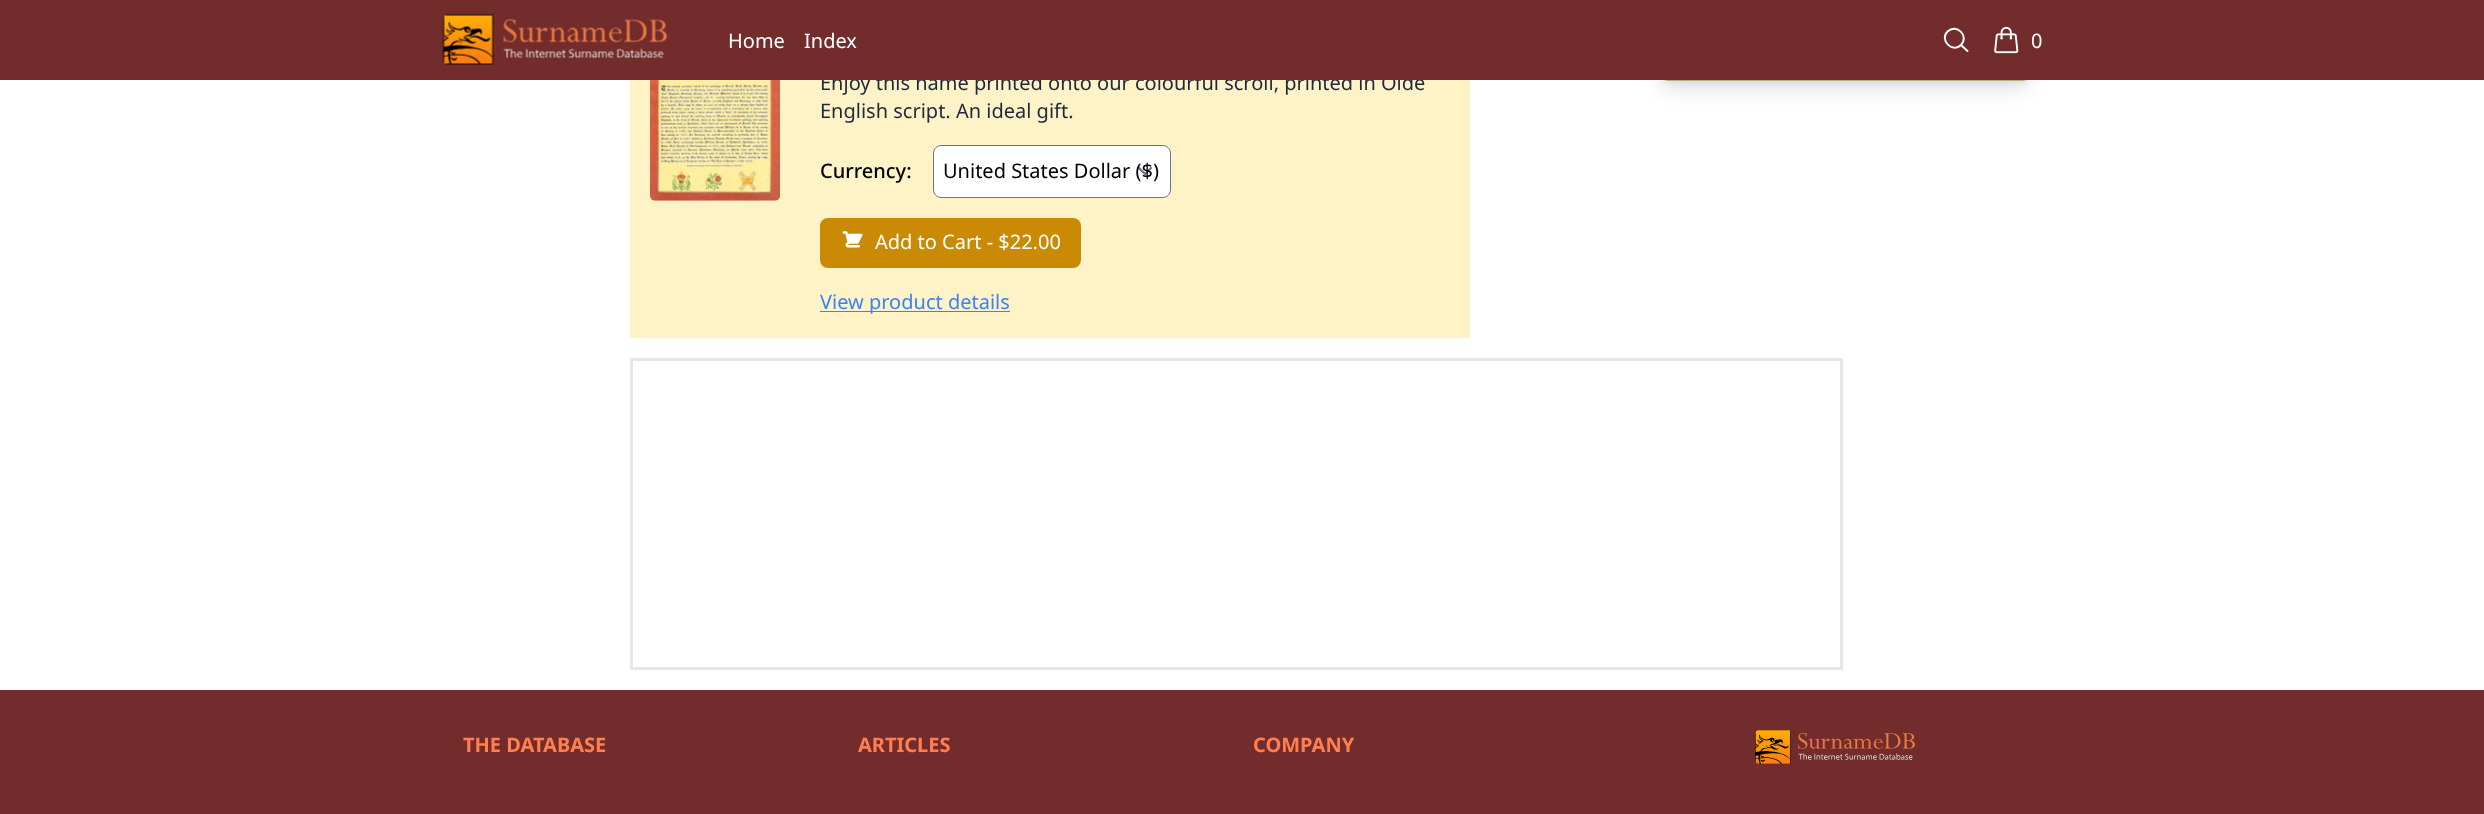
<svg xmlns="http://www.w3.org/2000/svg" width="2484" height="814">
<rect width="100%" height="100%" fill="#fff"/>
<rect x="1663" y="-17" width="365" height="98" rx="5" fill="#0000001a" filter="blur(4px)"/>
<rect x="1661" y="-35" width="368" height="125" rx="6" fill="#0000001a" filter="blur(9.5px)"/>
<rect x="1658" y="-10" width="375" height="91" rx="10" fill="#b5af82"/>
<rect x="630" y="80" width="840" height="258" fill="#fef3c7"/>
<text x="820" y="90" style="font-family:Noto Sans;font-size:20px;fill:#1e293b">Enjoy this name printed onto our colourful scroll, printed in Olde</text>
<rect width="2484" height="80" fill="#732c2c"/>
<image x="442" y="14" width="226" height="51" href="media/1.png"/>
<text x="728" y="48" style="font-family:Noto Sans;font-size:20px;fill:#fff">Home</text>
<text x="804" y="48" style="font-family:Noto Sans;font-size:20px;fill:#fff">Index</text>
<path d="M1967.5 51l-6.5-6m0 0c8.5-9-4.5-22-13.5-13.5c-8.5 8.5 5 22 13.5 13.5z" fill="none" stroke="#fff" stroke-width="1.9" stroke-linecap="round" stroke-linejoin="round"/>
<image x="1994" y="26" width="25" height="28" href="media/2.png"/>
<text x="2031" y="48" style="font-family:Noto Sans;font-size:20px;fill:#fff">0</text>
<image x="650" y="80" width="130" height="121" href="media/3.png"/>
<text x="820" y="118" style="font-family:Noto Sans;font-size:20px;fill:#1e293b">English script. An ideal gift.</text>
<text x="820" y="178" style="font-family:Noto Sans;font-size:20px;font-weight:500;fill:#000">Currency:</text>
<rect x="933" y="145" width="238" height="53" rx="8" fill="#fff"/>
<path d="M1139 168l6 6l6-6" fill="none" stroke="#6b7280" stroke-width="2.2" stroke-linecap="round" stroke-linejoin="round"/>
<rect x="933.5" y="145.5" width="237" height="52" rx="7.5" fill="none" stroke="#6b7280"/>
<text x="943" y="178" style="font-family:Noto Sans;font-size:20px;fill:#000">United States Dollar ($)</text>
<rect x="820" y="218" width="261" height="50" rx="8" fill="#ca8a04"/>
<image x="842" y="231" width="21" height="17" href="media/4.png"/>
<text x="875" y="249" style="font-family:Noto Sans;font-size:20px;fill:#fff">Add to Cart - $22.00</text>
<rect x="820" y="311" width="190" height="1" fill="#3b82f6"/>
<text x="820" y="309" style="font-family:Noto Sans;font-size:20px;fill:#3b82f6">View product details</text>
<rect x="631.5" y="359.5" width="1210" height="309" fill="none" stroke="#e5e7eb" stroke-width="3"/>
<rect y="690" width="2484" height="124" fill="#732c2c"/>
<text x="463" y="752" style="font-family:Noto Sans;font-size:20px;font-weight:bold;fill:#ff7f50">THE DATABASE</text>
<text x="858" y="752" style="font-family:Noto Sans;font-size:20px;font-weight:bold;fill:#ff7f50">ARTICLES</text>
<text x="1253" y="752" style="font-family:Noto Sans;font-size:20px;font-weight:bold;fill:#ff7f50">COMPANY</text>
<image x="1755" y="730" width="160" height="35" href="media/5.png"/>
</svg>
